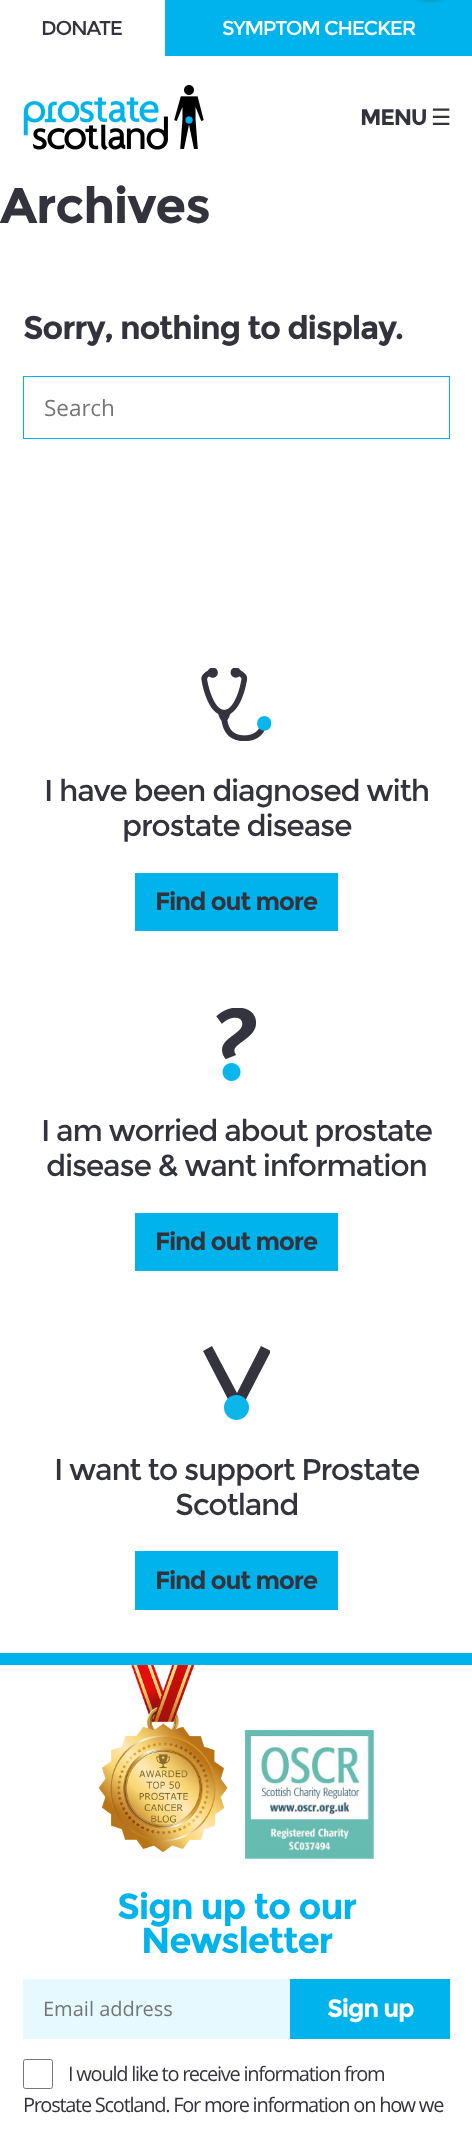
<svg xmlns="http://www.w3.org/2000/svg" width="472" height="2138">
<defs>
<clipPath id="clip1"><rect x="203" y="1346" width="67" height="74"/></clipPath>
</defs>
<rect width="100%" height="100%" fill="#fff"/>
<rect x="165" width="307" height="56" fill="#00b4eb"/>
<rect x="405" y="-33" width="50" height="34" rx="25" fill="#32323240" filter="blur(2.5px)"/>
<text x="41" y="35" style="font-family:Montserrat;font-size:20px;letter-spacing:-1.25px;fill:#33333d">DONATE</text>
<text x="222" y="35" style="font-family:Montserrat;font-size:20px;letter-spacing:-1.25px;fill:#fff">SYMPTOM CHECKER</text>
<image x="23" y="85" width="181" height="65" href="media/1.png"/>
<text x="360" y="125" style="font-family:Montserrat;font-size:22.5px;font-weight:bold;letter-spacing:-1.25px;fill:#33333d">MENU</text>
<text x="431" y="125" style="font-family:DejaVu Sans;font-size:22.5px;letter-spacing:-1.25px;fill:#33333d">☰</text>
<text x="0" y="223" style="font-family:Montserrat;font-size:50px;font-weight:bold;letter-spacing:-1.25px;fill:#33333d">Archives</text>
<text x="23" y="339" style="font-family:Montserrat;font-size:32.5px;font-weight:bold;letter-spacing:-1.25px;fill:#33333d">Sorry, nothing to display.</text>
<rect x="23.5" y="376.5" width="426" height="62" fill="none" stroke="#00b4eb"/>
<text x="44" y="416" style="font-family:Open Sans;font-size:22.5px;fill:#757575">Search</text>
<image x="201" y="668" width="70" height="73" href="media/2.png"/>
<text x="44" y="801" style="font-family:Montserrat;font-size:30px;letter-spacing:-1.25px;fill:#33333d">I have been diagnosed with</text>
<text x="122" y="836" style="font-family:Montserrat;font-size:30px;letter-spacing:-1.25px;fill:#33333d">prostate disease</text>
<rect x="135" y="873" width="203" height="58" fill="#00b4eb"/>
<text x="155" y="910" style="font-family:Montserrat;font-size:25px;font-weight:bold;letter-spacing:-1.25px;fill:#33333d">Find out more</text>
<image x="216" y="1008" width="40" height="73" href="media/3.png"/>
<text x="41" y="1141" style="font-family:Montserrat;font-size:30px;letter-spacing:-1.25px;fill:#33333d">I am worried about prostate</text>
<text x="46" y="1176" style="font-family:Montserrat;font-size:30px;letter-spacing:-1.25px;fill:#33333d">disease &amp; want information</text>
<rect x="135" y="1213" width="203" height="58" fill="#00b4eb"/>
<text x="155" y="1250" style="font-family:Montserrat;font-size:25px;font-weight:bold;letter-spacing:-1.25px;fill:#33333d">Find out more</text>
<g clip-path="url(#clip1)">
<path d="M271 1351l-10-5l-24 47l-25-47l-9 5l29 56l5-2l5 2z" fill="#34343e"/>
</g>
<circle cx="236.5" cy="1407.5" r="12.5" fill="#0cb5ea"/>
<text x="54" y="1480" style="font-family:Montserrat;font-size:30px;letter-spacing:-1.25px;fill:#33333d">I want to support Prostate</text>
<text x="175" y="1515" style="font-family:Montserrat;font-size:30px;letter-spacing:-1.25px;fill:#33333d">Scotland</text>
<rect x="135" y="1551" width="203" height="59" fill="#00b4eb"/>
<text x="155" y="1589" style="font-family:Montserrat;font-size:25px;font-weight:bold;letter-spacing:-1.25px;fill:#33333d">Find out more</text>
<rect y="1653" width="472" height="12" fill="#00b4eb"/>
<image x="98" y="1665" width="130" height="193" href="media/4.png"/>
<image x="245" y="1730" width="129" height="129" href="media/5.png"/>
<text x="117" y="1919" style="font-family:Montserrat;font-size:36px;font-weight:bold;letter-spacing:-1.25px;fill:#00b4eb">Sign up to our</text>
<text x="141" y="1953" style="font-family:Montserrat;font-size:36px;font-weight:bold;letter-spacing:-1.25px;fill:#00b4eb">Newsletter</text>
<rect x="23" y="1979" width="267" height="60" fill="#e5f9ff"/>
<text x="43" y="2016" style="font-family:Open Sans;font-size:20px;fill:#757575">Email address</text>
<rect x="290" y="1979" width="160" height="60" fill="#00b4eb"/>
<text x="327" y="2017" style="font-family:Montserrat;font-size:25px;font-weight:bold;letter-spacing:-1.25px;fill:#fff">Sign up</text>
<rect x="23.5" y="2059.5" width="29" height="29" rx="2" fill="none" stroke="#767676"/>
<text x="68" y="2081" style="font-family:Open Sans;font-size:20px;letter-spacing:-1.25px;fill:#33333d">I would like to receive information from</text>
<text x="23" y="2112" style="font-family:Open Sans;font-size:20px;letter-spacing:-1.25px;fill:#33333d">Prostate Scotland. For more information on how we</text>
</svg>
